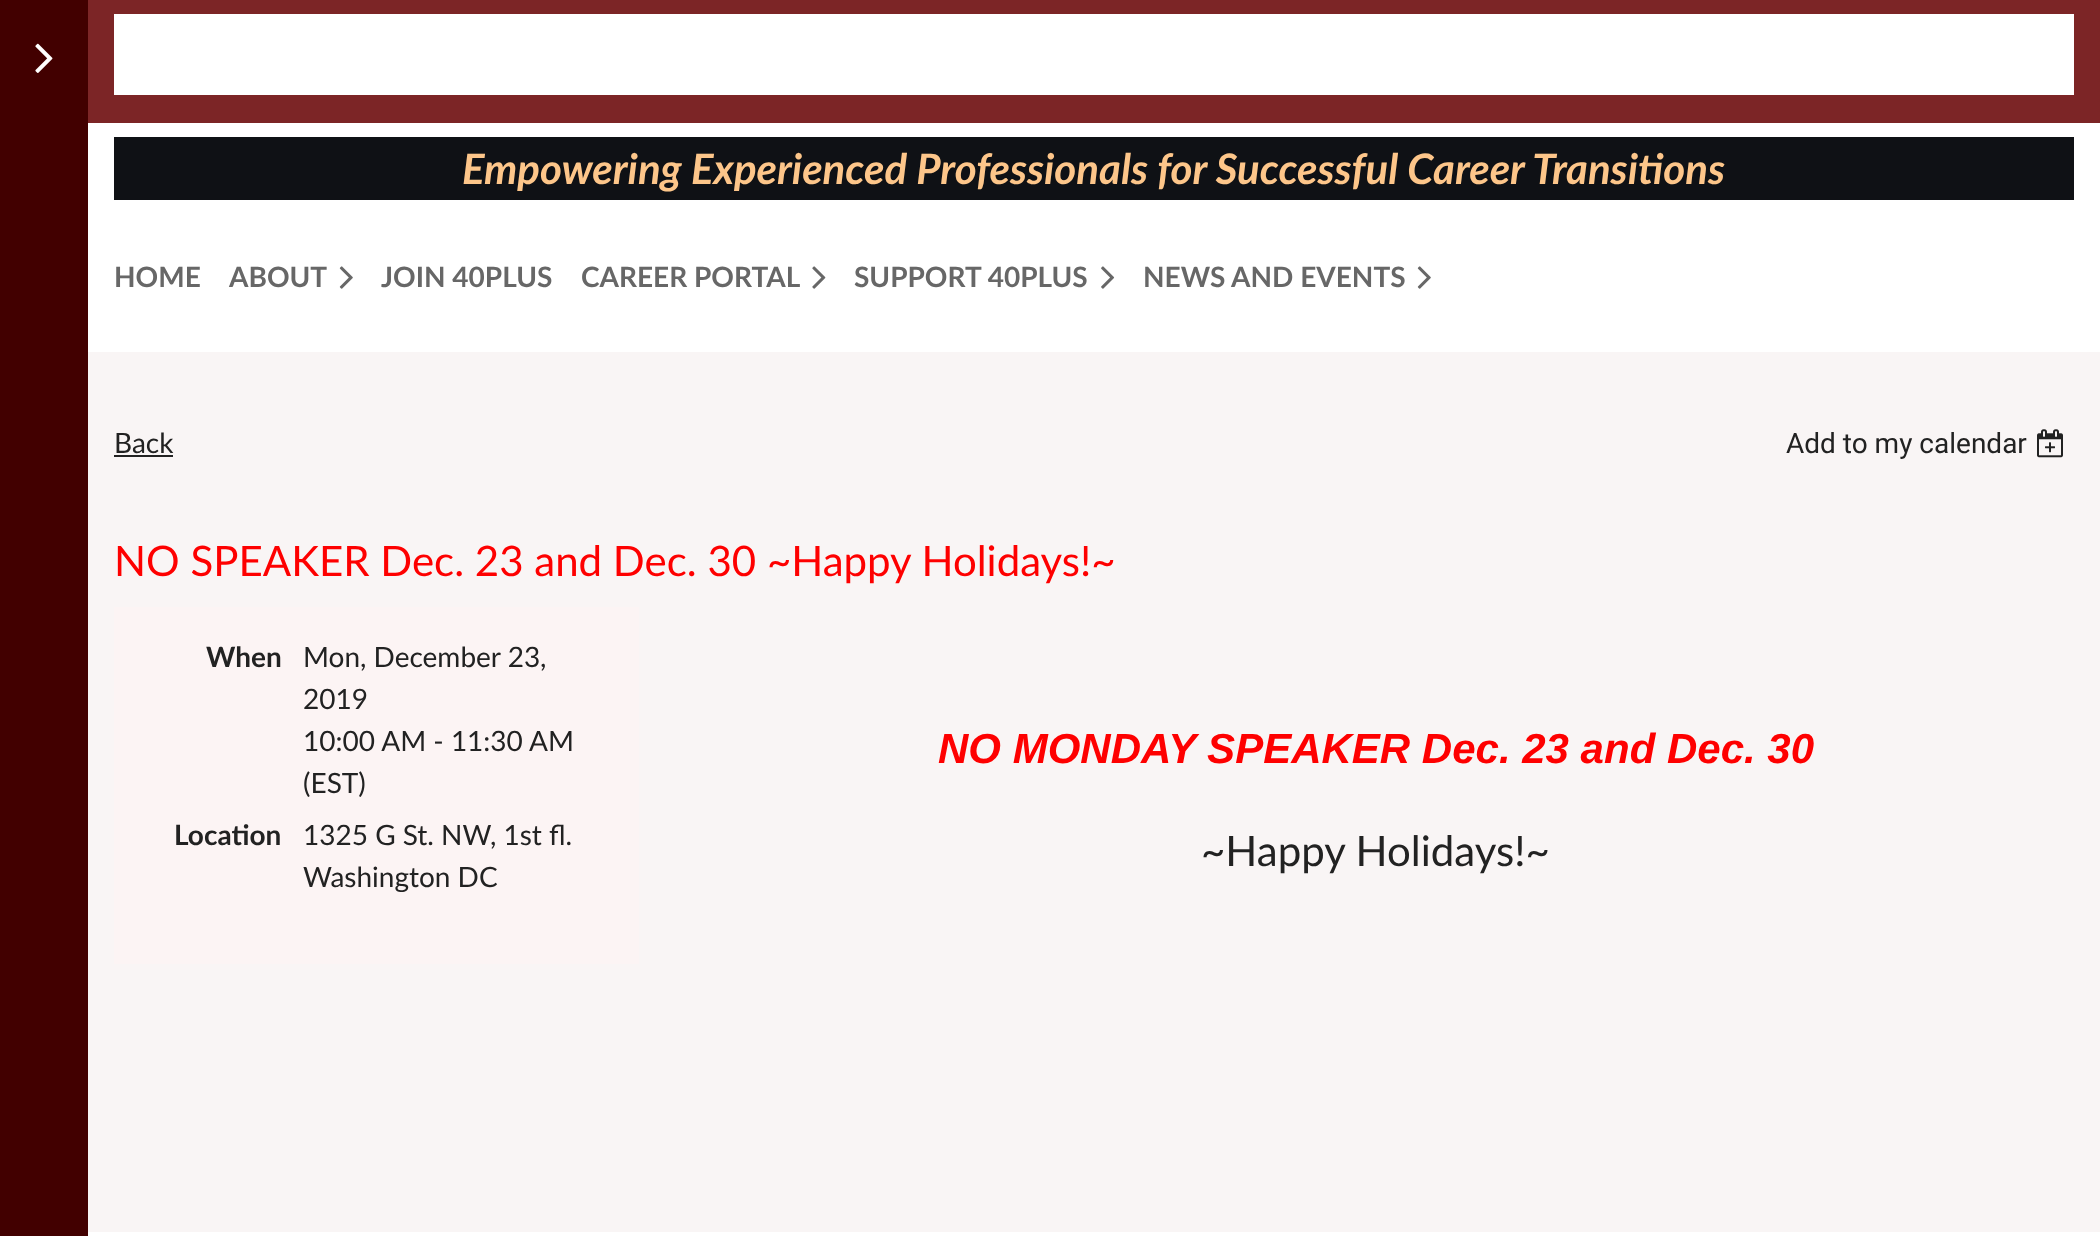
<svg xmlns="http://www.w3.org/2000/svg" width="2100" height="1236">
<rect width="100%" height="100%" fill="#fff"/>
<rect width="88" height="1236" fill="#420000"/>
<image x="35" y="43" width="18" height="30" href="media/1.png"/>
<rect x="88" width="2012" height="123" fill="#7c2526"/>
<rect x="114" y="14" width="1960" height="81" fill="#fff"/>
<rect x="114" y="137" width="1960" height="63" fill="#0f1115"/>
<text x="462" y="184" style="font-family:Lato;font-size:42px;font-weight:bold;font-style:italic;fill:#fdc68a">Empowering Experienced Professionals for Successful Career Transitions</text>
<text x="114" y="287" style="font-family:Lato;font-size:28px;font-weight:bold;fill:#676767">HOME</text>
<text x="229" y="287" style="font-family:Lato;font-size:28px;font-weight:bold;fill:#676767">ABOUT</text>
<image x="339" y="266" width="14" height="23" href="media/2.png"/>
<text x="381" y="287" style="font-family:Lato;font-size:28px;font-weight:bold;fill:#676767">JOIN 40PLUS</text>
<text x="581" y="287" style="font-family:Lato;font-size:28px;font-weight:bold;fill:#676767">CAREER PORTAL</text>
<image x="812" y="266" width="14" height="23" href="media/3.png"/>
<text x="854" y="287" style="font-family:Lato;font-size:28px;font-weight:bold;fill:#676767">SUPPORT 40PLUS</text>
<image x="1101" y="266" width="14" height="23" href="media/4.png"/>
<text x="1143" y="287" style="font-family:Lato;font-size:28px;font-weight:bold;fill:#676767">NEWS AND EVENTS</text>
<image x="1417" y="266" width="14" height="23" href="media/2.png"/>
<rect x="88" y="352" width="2012" height="880" fill="#f9f5f5"/>
<text x="114" y="453" style="font-family:Lato;font-size:28px;fill:#222">Back</text>
<rect x="114" y="455" width="59" height="2" fill="#222"/>
<text x="1786" y="453" style="font-family:Roboto;font-size:28px;fill:#222">Add to my calendar</text>
<image x="2037" y="429" width="26" height="29" href="media/5.png"/>
<text x="114" y="576" style="font-family:Lato;font-size:42px;fill:#fe0000">NO SPEAKER Dec. 23 and Dec. 30 ~Happy Holidays!~</text>
<rect x="114" y="607" width="525" height="357" fill="#fcf4f4"/>
<text x="206" y="667" style="font-family:Lato;font-size:28px;font-weight:bold;fill:#222">When</text>
<text x="303" y="667" style="font-family:Lato;font-size:28px;fill:#222">Mon, December 23,</text>
<text x="303" y="709" style="font-family:Lato;font-size:28px;fill:#222">2019</text>
<text x="303" y="751" style="font-family:Lato;font-size:28px;fill:#222">10:00 AM - 11:30 AM</text>
<text x="303" y="793" style="font-family:Lato;font-size:28px;fill:#222">(EST)</text>
<text x="174" y="845" style="font-family:Lato;font-size:28px;font-weight:bold;fill:#222">Location</text>
<text x="303" y="845" style="font-family:Lato;font-size:28px;fill:#222">1325 G St. NW, 1st fl.</text>
<text x="303" y="887" style="font-family:Lato;font-size:28px;fill:#222">Washington DC</text>
<text x="938" y="763" style="font-family:Liberation Sans;font-size:42px;font-weight:bold;font-style:italic;fill:#fe0000">NO MONDAY SPEAKER Dec. 23 and Dec. 30</text>
<text x="1201" y="866" style="font-family:Lato;font-size:42px;fill:#222">~Happy Holidays!~</text>
</svg>
